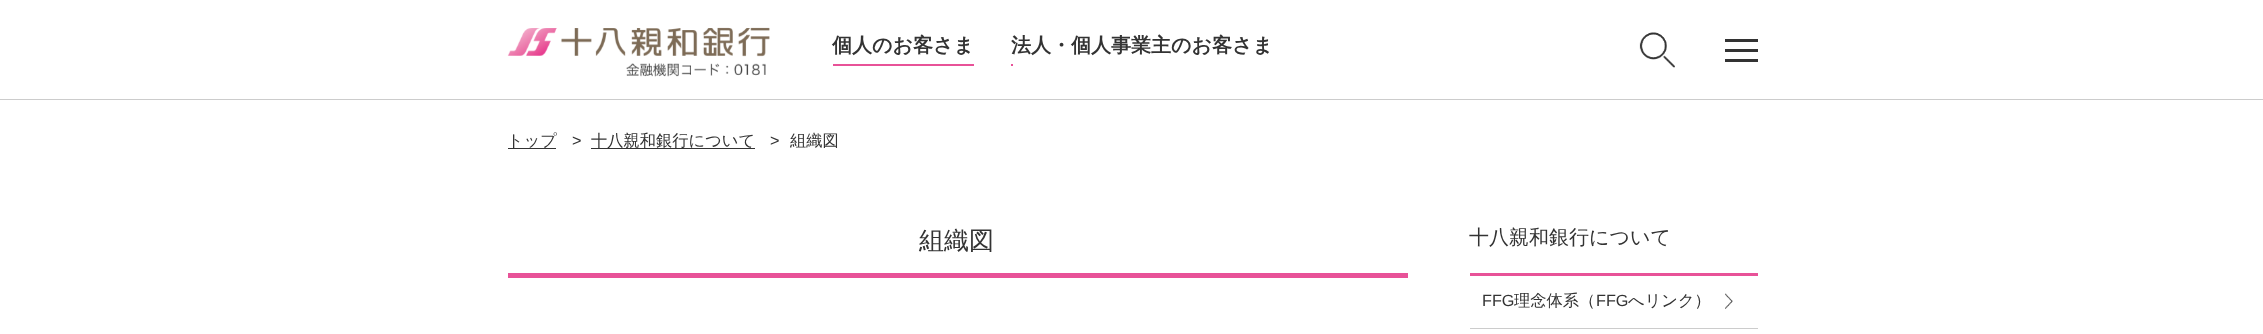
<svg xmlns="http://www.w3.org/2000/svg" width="2263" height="334">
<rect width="100%" height="100%" fill="#fff"/>
<image x="507" y="27" width="263" height="50" href="media/1.png"/>
<text x="832" y="52" style="font-family:WenQuanYi Zen Hei;font-size:20px;font-weight:bold;fill:#333">個人のお客さま</text>
<rect x="833" y="64" width="141" height="2" fill="#e85298"/>
<text x="1011" y="52" style="font-family:WenQuanYi Zen Hei;font-size:20px;font-weight:bold;fill:#333">法人・個人事業主のお客さま</text>
<rect x="1011" y="64" width="2" height="2" fill="#e85298"/>
<image x="1639" y="32" width="36" height="36" href="media/2.png"/>
<rect x="1725" y="39" width="33" height="3" fill="#333"/>
<rect x="1725" y="49" width="33" height="3" fill="#333"/>
<rect x="1725" y="59" width="33" height="3" fill="#333"/>
<rect y="99" width="2263" height="1" fill="#ccc"/>
<text x="507" y="146" style="font-family:WenQuanYi Zen Hei;font-size:16.25px;font-weight:500;fill:#333">トップ</text>
<rect x="508" y="148" width="48" height="1" fill="#333"/>
<text x="572" y="146" style="font-family:Liberation Sans;font-size:16.25px;fill:#333">&gt;</text>
<rect x="591" y="148" width="164" height="1" fill="#333"/>
<text x="591" y="146" style="font-family:WenQuanYi Zen Hei;font-size:16.25px;font-weight:500;fill:#333">十八親和銀行について</text>
<text x="770" y="146" style="font-family:Liberation Sans;font-size:16.25px;fill:#333">&gt;</text>
<text x="790" y="146" style="font-family:WenQuanYi Zen Hei;font-size:16.25px;font-weight:500;fill:#333">組織図</text>
<text x="919" y="249" style="font-family:WenQuanYi Zen Hei;font-size:25px;font-weight:500;fill:#333">組織図</text>
<rect x="508" y="273" width="900" height="5" fill="#e85298"/>
<rect x="1470" y="273" width="288" height="3" fill="#e85298"/>
<text x="1469" y="244" style="font-family:WenQuanYi Zen Hei;font-size:20px;font-weight:500;fill:#333">十八親和銀行について</text>
<image x="1725" y="293" width="8" height="16" href="media/3.png"/>
<rect x="1470" y="328" width="288" height="1" fill="#ccc"/>
<text x="1482" y="306" style="font-family:Liberation Sans;font-size:16.25px;fill:#333">FFG</text>
<text x="1514" y="306" style="font-family:WenQuanYi Zen Hei;font-size:16.25px;font-weight:500;fill:#333">理念体系（</text>
<text x="1596" y="306" style="font-family:Liberation Sans;font-size:16.25px;fill:#333">FFG</text>
<text x="1628" y="306" style="font-family:WenQuanYi Zen Hei;font-size:16.25px;font-weight:500;fill:#333">へリンク）</text>
</svg>
